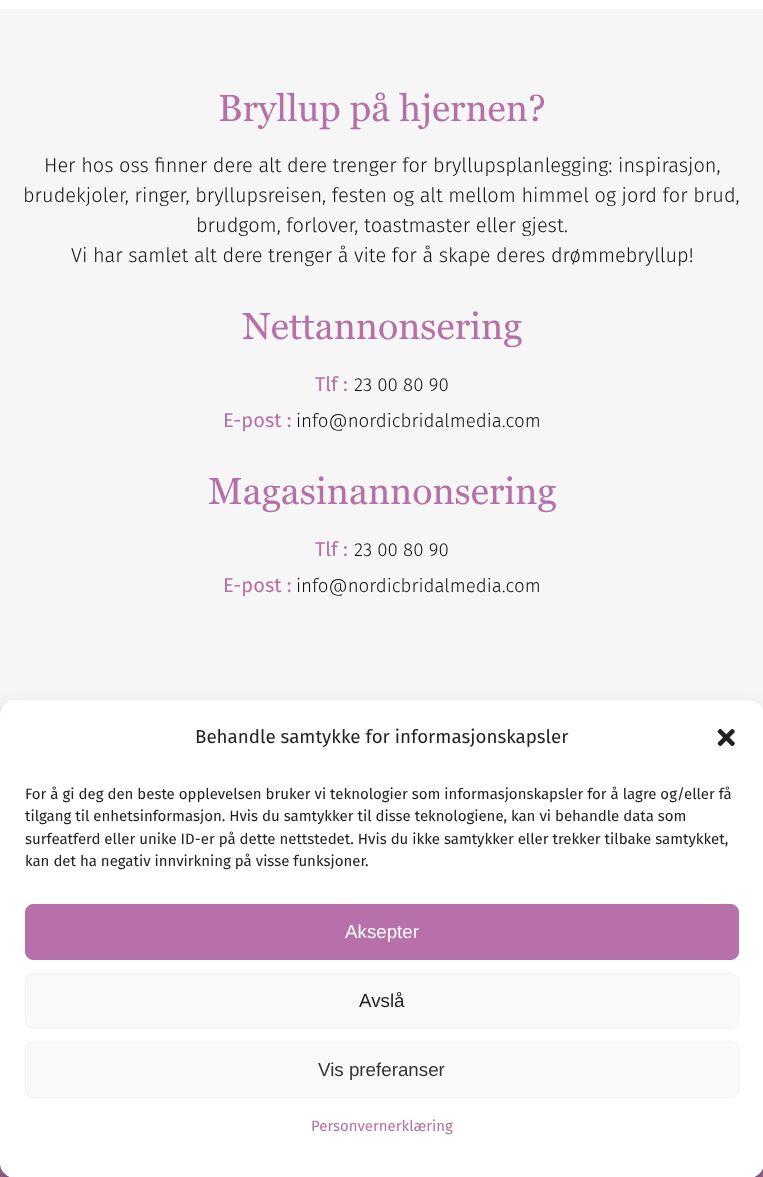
<svg xmlns="http://www.w3.org/2000/svg" width="763" height="1177">
<rect width="100%" height="100%" fill="#fff"/>
<rect y="9" width="763" height="706" fill="#f6f6f6"/>
<text x="218" y="121" style="font-family:Georgia;font-size:37.5px;fill:#b570a5">Bryllup på hjernen?</text>
<text x="44" y="172" style="font-family:Fira Sans;font-size:20px;font-weight:300;fill:#121212">Her hos oss finner dere alt dere trenger for bryllupsplanlegging: inspirasjon,</text>
<text x="23" y="202" style="font-family:Fira Sans;font-size:20px;font-weight:300;fill:#121212">brudekjoler, ringer, bryllupsreisen, festen og alt mellom himmel og jord for brud,</text>
<text x="196" y="232" style="font-family:Fira Sans;font-size:20px;font-weight:300;fill:#121212">brudgom, forlover, toastmaster eller gjest.</text>
<text x="71" y="262" style="font-family:Fira Sans;font-size:20px;font-weight:300;fill:#121212">Vi har samlet alt dere trenger å vite for å skape deres drømmebryllup!</text>
<text x="242" y="339" style="font-family:Georgia;font-size:37.5px;fill:#b570a5">Nettannonsering</text>
<text x="315" y="391" style="font-family:Fira Sans;font-size:20px;fill:#b570a5">Tlf :</text>
<text x="354" y="391" style="font-family:Fira Sans;font-size:18.75px;font-weight:300;fill:#121212">23 00 80 90</text>
<text x="223" y="427" style="font-family:Fira Sans;font-size:20px;fill:#b570a5">E-post :</text>
<text x="296" y="427" style="font-family:Fira Sans;font-size:18.75px;font-weight:300;fill:#121212">info@nordicbridalmedia.com</text>
<text x="208" y="504" style="font-family:Georgia;font-size:37.5px;fill:#b570a5">Magasinannonsering</text>
<text x="315" y="556" style="font-family:Fira Sans;font-size:20px;fill:#b570a5">Tlf :</text>
<text x="354" y="556" style="font-family:Fira Sans;font-size:18.75px;font-weight:300;fill:#121212">23 00 80 90</text>
<text x="223" y="592" style="font-family:Fira Sans;font-size:20px;fill:#b570a5">E-post :</text>
<text x="296" y="592" style="font-family:Fira Sans;font-size:18.75px;font-weight:300;fill:#121212">info@nordicbridalmedia.com</text>
<rect y="1163" width="763" height="14" fill="#b570a5"/>
<rect y="708" width="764" height="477" rx="15" fill="#0000003b" filter="blur(4px)"/>
<rect y="713" width="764" height="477" rx="15" fill="#00000030" filter="blur(12.5px)"/>
<rect y="700" width="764" height="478" rx="15" fill="#fff"/>
<text x="195" y="743" style="font-family:Fira Sans;font-size:18.75px;fill:#222">Behandle samtykke for informasjonskapsler</text>
<image x="717" y="728" width="18" height="19" href="media/1.png"/>
<text x="25" y="799" style="font-family:Fira Sans;font-size:15px;fill:#222">For å gi deg den beste opplevelsen bruker vi teknologier som informasjonskapsler for å lagre og/eller få</text>
<text x="25" y="821" style="font-family:Fira Sans;font-size:15px;fill:#222">tilgang til enhetsinformasjon. Hvis du samtykker til disse teknologiene, kan vi behandle data som</text>
<text x="25" y="844" style="font-family:Fira Sans;font-size:15px;fill:#222">surfeatferd eller unike ID-er på dette nettstedet. Hvis du ikke samtykker eller trekker tilbake samtykket,</text>
<text x="25" y="866" style="font-family:Fira Sans;font-size:15px;fill:#222">kan det ha negativ innvirkning på visse funksjoner.</text>
<rect x="25.5" y="904.5" width="713" height="55" rx="7.5" fill="#b770a9" stroke="#b770a9"/>
<text x="345" y="938" style="font-family:Liberation Sans;font-size:18.75px;fill:#fff">Aksepter</text>
<rect x="25.5" y="973.5" width="713" height="55" rx="7.5" fill="#f9f9f9" stroke="#f2f2f2"/>
<text x="359" y="1007" style="font-family:Liberation Sans;font-size:18.75px;fill:#222">Avslå</text>
<rect x="25.5" y="1041.5" width="713" height="56" rx="7.5" fill="#f9f9f9" stroke="#f2f2f2"/>
<text x="318" y="1076" style="font-family:Liberation Sans;font-size:18.75px;fill:#333">Vis preferanser</text>
<text x="311" y="1131" style="font-family:Fira Sans;font-size:15px;fill:#b570a5">Personvernerklæring</text>
</svg>
